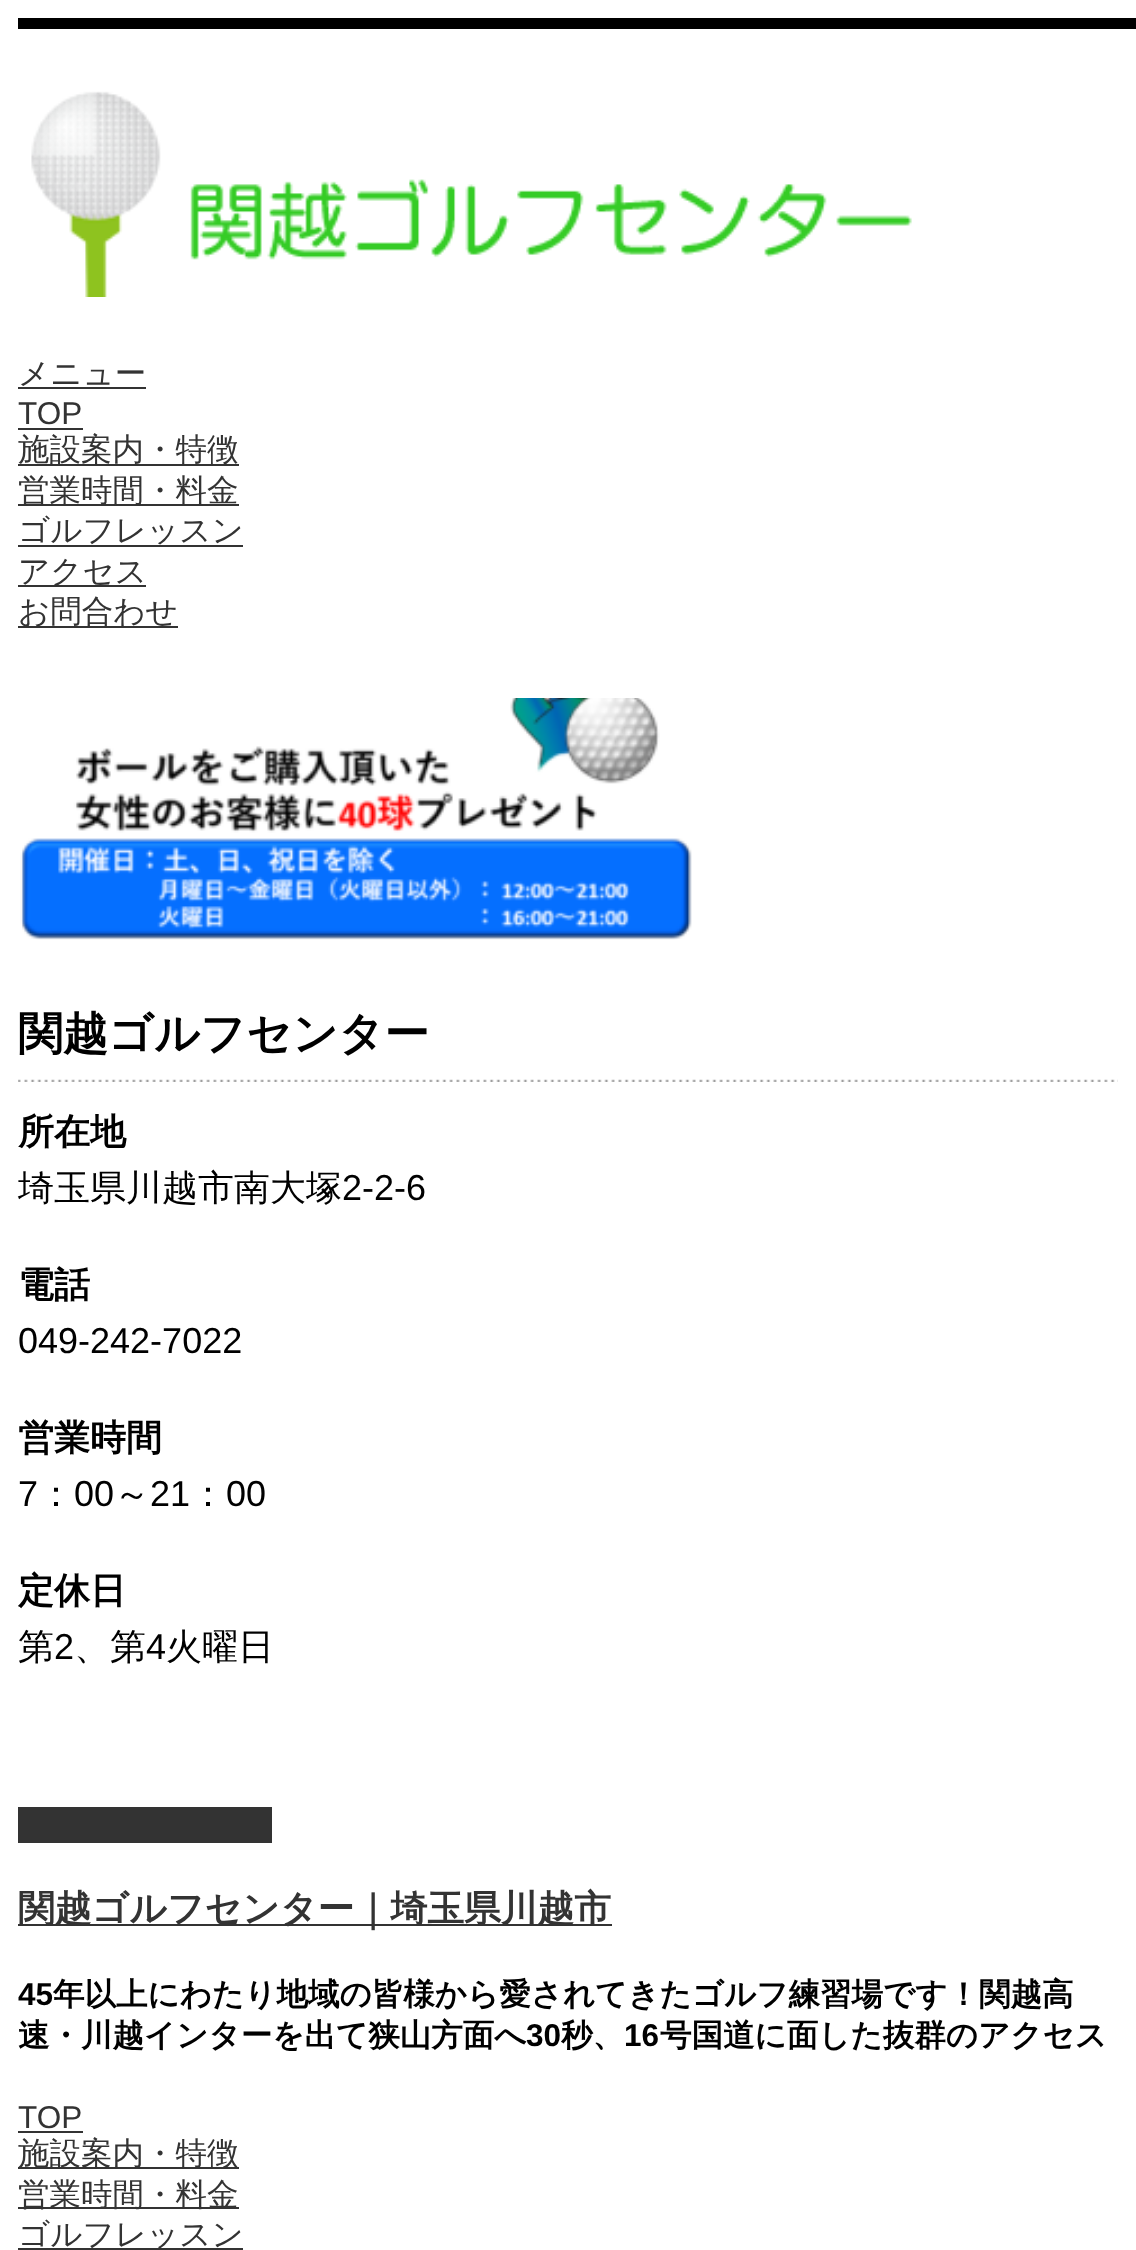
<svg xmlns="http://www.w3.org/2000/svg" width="1136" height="2250">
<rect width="100%" height="100%" fill="#fff"/>
<rect x="18" y="18" width="1118" height="11" fill="#000"/>
<image x="31" y="91" width="881" height="206" href="media/1.png"/>
<text x="18" y="384" style="font-family:WenQuanYi Zen Hei;font-size:31.5px;font-weight:500;fill:#333">メニュー</text>
<rect x="18" y="387" width="128" height="2" fill="#333"/>
<text x="18" y="424" style="font-family:Liberation Sans;font-size:31.5px;fill:#333">TOP</text>
<rect x="18" y="428" width="65" height="2" fill="#333"/>
<rect x="18" y="464" width="221" height="2" fill="#333"/>
<text x="18" y="460" style="font-family:WenQuanYi Zen Hei;font-size:31.5px;font-weight:500;fill:#333">施設案内・特徴</text>
<rect x="18" y="504" width="221" height="2" fill="#333"/>
<text x="18" y="501" style="font-family:WenQuanYi Zen Hei;font-size:31.5px;font-weight:500;fill:#333">営業時間・料金</text>
<text x="18" y="541" style="font-family:WenQuanYi Zen Hei;font-size:31.5px;font-weight:500;fill:#333">ゴルフレッスン</text>
<rect x="18" y="545" width="225" height="2" fill="#333"/>
<rect x="18" y="585" width="128" height="2" fill="#333"/>
<text x="18" y="582" style="font-family:WenQuanYi Zen Hei;font-size:31.5px;font-weight:500;fill:#333">アクセス</text>
<rect x="18" y="626" width="160" height="2" fill="#333"/>
<text x="18" y="622" style="font-family:WenQuanYi Zen Hei;font-size:31.5px;font-weight:500;fill:#333">お問合わせ</text>
<image x="20" y="698" width="672" height="242" href="media/2.png"/>
<image x="18" y="1079" width="1100" height="3" href="media/3.png"/>
<text x="18" y="1049" style="font-family:WenQuanYi Zen Hei;font-size:45px;font-weight:bold;fill:#000">関越ゴルフセンター</text>
<text x="18" y="1144" style="font-family:WenQuanYi Zen Hei;font-size:36px;font-weight:bold;fill:#000">所在地</text>
<text x="18" y="1200" style="font-family:WenQuanYi Zen Hei;font-size:36px;font-weight:500;fill:#000">埼玉県川越市南大塚</text>
<text x="342" y="1200" style="font-family:Liberation Sans;font-size:36px;fill:#000">2-2-6</text>
<text x="18" y="1297" style="font-family:WenQuanYi Zen Hei;font-size:36px;font-weight:bold;fill:#000">電話</text>
<text x="18" y="1353" style="font-family:Liberation Sans;font-size:36px;fill:#000">049-242-7022</text>
<text x="18" y="1450" style="font-family:WenQuanYi Zen Hei;font-size:36px;font-weight:bold;fill:#000">営業時間</text>
<text x="18" y="1506" style="font-family:Liberation Sans;font-size:36px;fill:#000">7</text>
<text x="38" y="1506" style="font-family:WenQuanYi Zen Hei;font-size:36px;font-weight:500;fill:#000">：</text>
<text x="74" y="1506" style="font-family:Liberation Sans;font-size:36px;fill:#000">00</text>
<text x="114" y="1506" style="font-family:WenQuanYi Zen Hei;font-size:36px;font-weight:500;fill:#000">～</text>
<text x="150" y="1506" style="font-family:Liberation Sans;font-size:36px;fill:#000">21</text>
<text x="190" y="1506" style="font-family:WenQuanYi Zen Hei;font-size:36px;font-weight:500;fill:#000">：</text>
<text x="226" y="1506" style="font-family:Liberation Sans;font-size:36px;fill:#000">00</text>
<text x="18" y="1603" style="font-family:WenQuanYi Zen Hei;font-size:36px;font-weight:bold;fill:#000">定休日</text>
<text x="18" y="1659" style="font-family:WenQuanYi Zen Hei;font-size:36px;font-weight:500;fill:#000">第</text>
<text x="54" y="1659" style="font-family:Liberation Sans;font-size:36px;fill:#000">2</text>
<text x="74" y="1659" style="font-family:WenQuanYi Zen Hei;font-size:36px;font-weight:500;fill:#000">、第</text>
<text x="146" y="1659" style="font-family:Liberation Sans;font-size:36px;fill:#000">4</text>
<text x="166" y="1659" style="font-family:WenQuanYi Zen Hei;font-size:36px;font-weight:500;fill:#000">火曜日</text>
<rect x="18" y="1807" width="254" height="36" fill="#333"/>
<rect x="18" y="1924" width="594" height="2" fill="#333"/>
<text x="18" y="1921" style="font-family:WenQuanYi Zen Hei;font-size:36.8px;font-weight:bold;fill:#333">関越ゴルフセンター｜埼玉県川越市</text>
<text x="18" y="2005" style="font-family:Liberation Sans;font-size:31.5px;font-weight:bold;fill:#000">45</text>
<text x="53" y="2005" style="font-family:WenQuanYi Zen Hei;font-size:31.5px;font-weight:bold;fill:#000">年以上にわたり地域の皆様から愛されてきたゴルフ練習場です！関越高</text>
<text x="18" y="2046" style="font-family:WenQuanYi Zen Hei;font-size:31.5px;font-weight:bold;fill:#000">速・川越インターを出て狭山方面へ</text>
<text x="526" y="2046" style="font-family:Liberation Sans;font-size:31.5px;font-weight:bold;fill:#000">30</text>
<text x="561" y="2046" style="font-family:WenQuanYi Zen Hei;font-size:31.5px;font-weight:bold;fill:#000">秒、</text>
<text x="624" y="2046" style="font-family:Liberation Sans;font-size:31.5px;font-weight:bold;fill:#000">16</text>
<text x="660" y="2046" style="font-family:WenQuanYi Zen Hei;font-size:31.5px;font-weight:bold;fill:#000">号国道に面した抜群のアクセス</text>
<text x="18" y="2128" style="font-family:Liberation Sans;font-size:31.5px;fill:#333">TOP</text>
<rect x="18" y="2131" width="65" height="2" fill="#333"/>
<rect x="18" y="2167" width="221" height="2" fill="#333"/>
<text x="18" y="2164" style="font-family:WenQuanYi Zen Hei;font-size:31.5px;font-weight:500;fill:#333">施設案内・特徴</text>
<rect x="18" y="2207" width="221" height="2" fill="#333"/>
<text x="18" y="2205" style="font-family:WenQuanYi Zen Hei;font-size:31.5px;font-weight:500;fill:#333">営業時間・料金</text>
<rect x="18" y="2248" width="225" height="2" fill="#333"/>
<text x="18" y="2245" style="font-family:WenQuanYi Zen Hei;font-size:31.5px;font-weight:500;fill:#333">ゴルフレッスン</text>
</svg>
